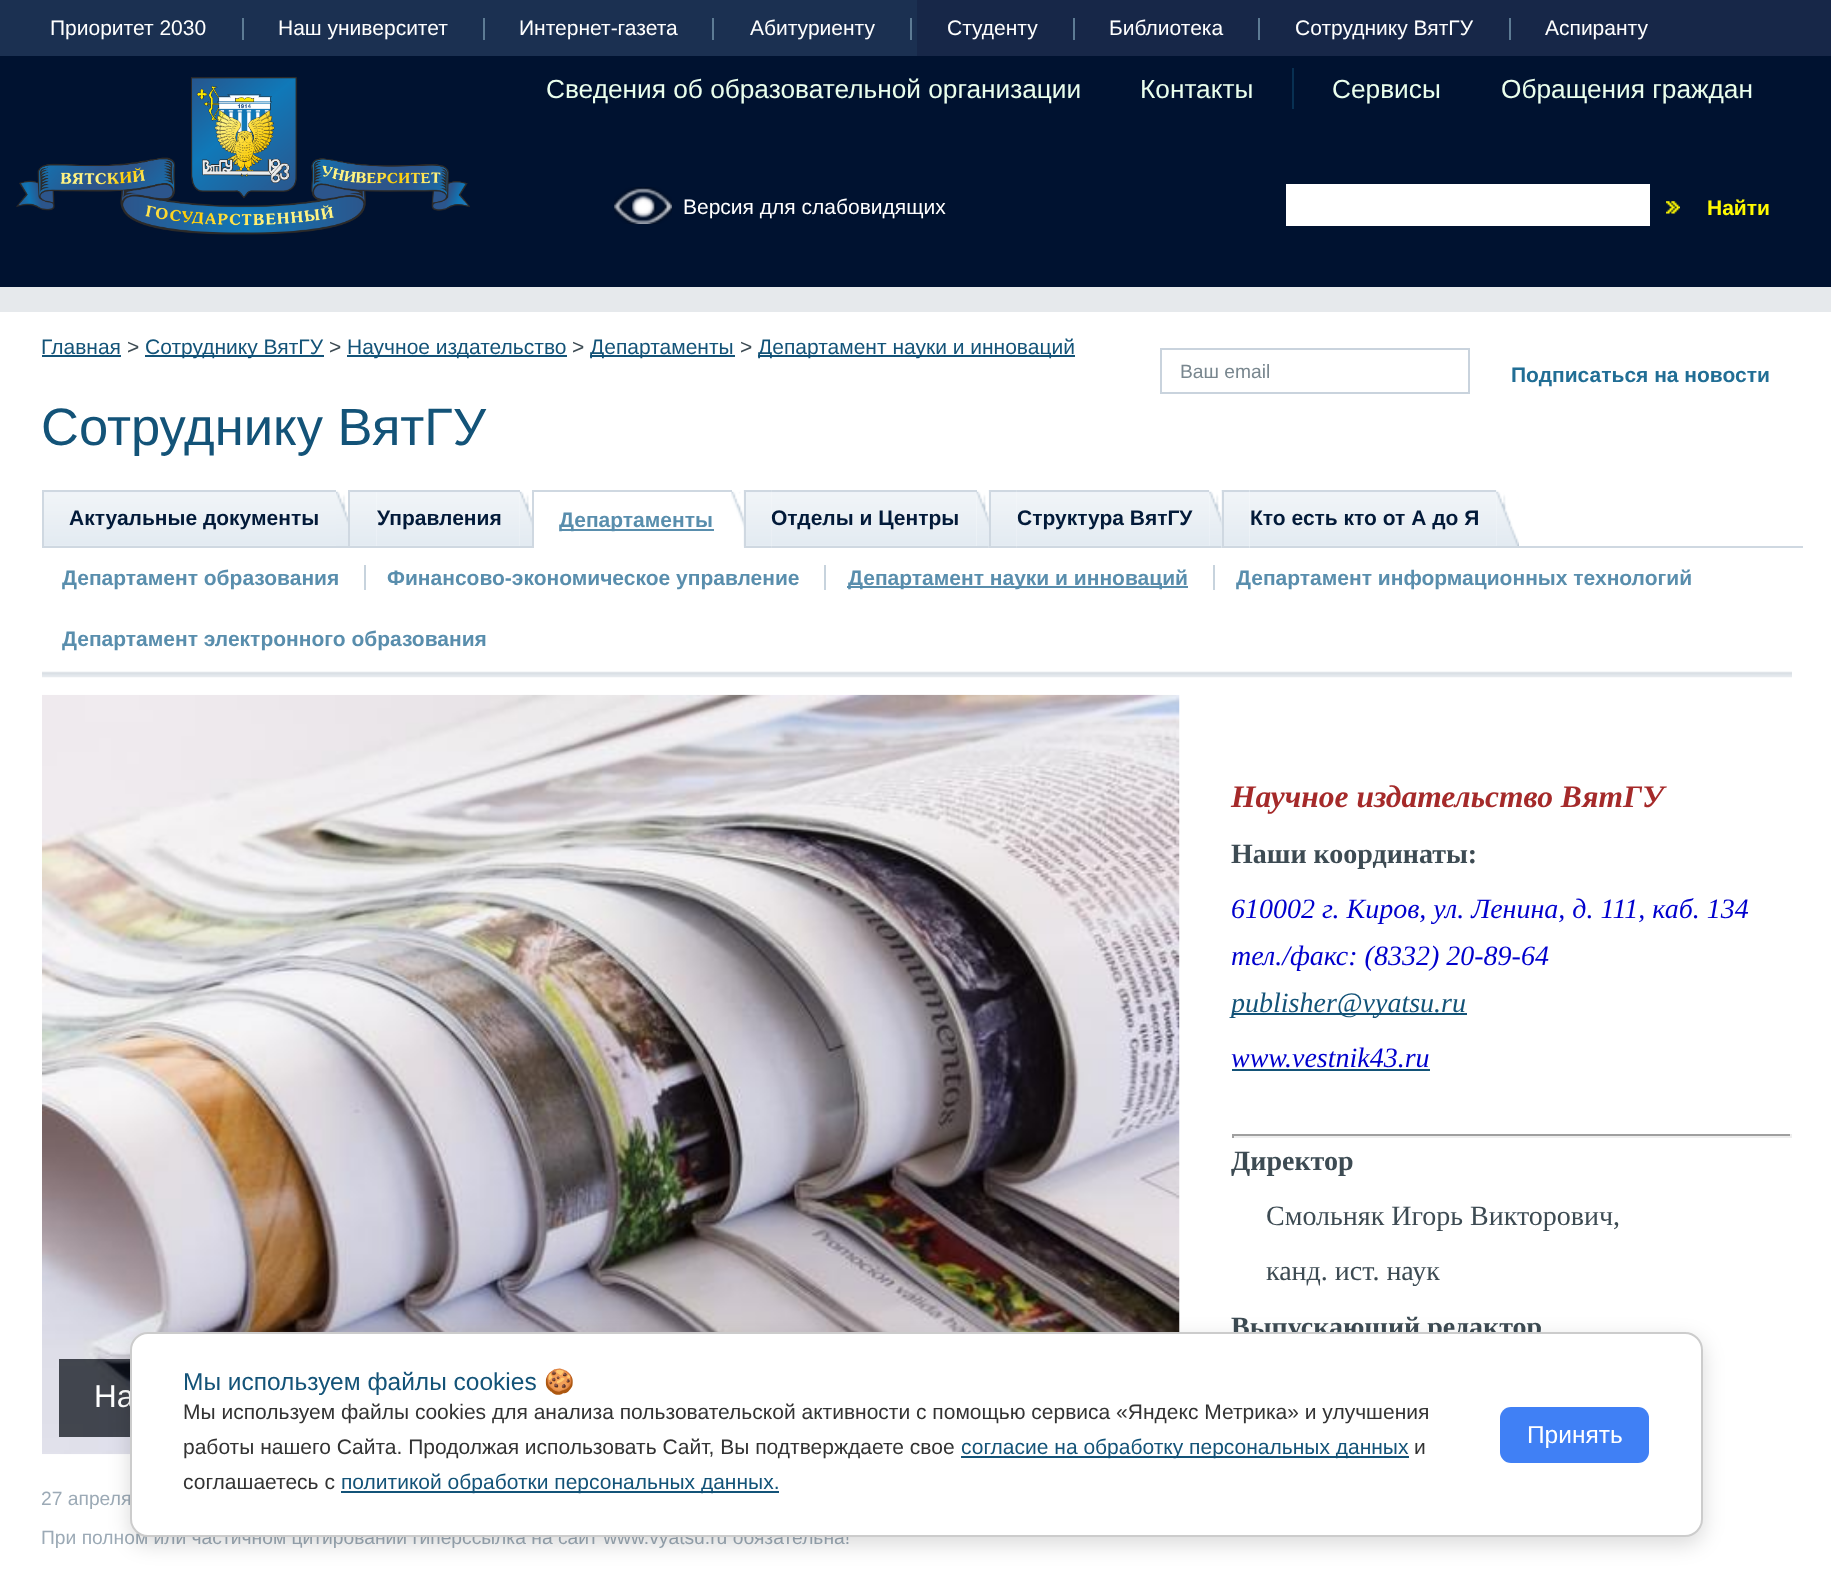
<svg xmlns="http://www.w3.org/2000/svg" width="1831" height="1570">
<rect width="100%" height="100%" fill="#fff"/>
<rect x="917" width="914" height="56" fill="#172748"/>
<rect width="917" height="56" fill="#1b3051"/>
<rect x="242" y="18" width="2" height="22" fill="#5d7b94"/>
<text x="50" y="35" style="font-family:Liberation Sans;font-size:21px;fill:#fff">Приоритет 2030</text>
<rect x="483" y="18" width="2" height="22" fill="#5d7b94"/>
<text x="278" y="35" style="font-family:Liberation Sans;font-size:21px;fill:#fff">Наш университет</text>
<rect x="712" y="18" width="2" height="22" fill="#5d7b94"/>
<text x="519" y="35" style="font-family:Liberation Sans;font-size:21px;fill:#fff">Интернет-газета</text>
<rect x="910" y="18" width="2" height="22" fill="#5d7b94"/>
<text x="750" y="35" style="font-family:Liberation Sans;font-size:21px;fill:#fff">Абитуриенту</text>
<rect x="1073" y="18" width="2" height="22" fill="#5d7b94"/>
<text x="947" y="35" style="font-family:Liberation Sans;font-size:21px;fill:#fff">Студенту</text>
<rect x="1258" y="18" width="2" height="22" fill="#5d7b94"/>
<text x="1109" y="35" style="font-family:Liberation Sans;font-size:21px;fill:#fff">Библиотека</text>
<rect x="1509" y="18" width="2" height="22" fill="#5d7b94"/>
<text x="1295" y="35" style="font-family:Liberation Sans;font-size:21px;fill:#fff">Сотруднику ВятГУ</text>
<text x="1545" y="35" style="font-family:Liberation Sans;font-size:21px;fill:#fff">Аспиранту</text>
<rect y="56" width="1831" height="231" fill="#001230"/>
<rect y="287" width="1831" height="25" fill="#e6e9ec"/>
<image x="16" y="77" width="454" height="158" href="media/1.png"/>
<text x="546" y="98" style="font-family:Liberation Sans;font-size:26.25px;fill:#eaffed">Сведения об образовательной организации</text>
<text x="1140" y="98" style="font-family:Liberation Sans;font-size:26.25px;fill:#eaffed">Контакты</text>
<rect x="1292" y="68" width="2" height="41" fill="#083052"/>
<text x="1332" y="98" style="font-family:Liberation Sans;font-size:26.25px;fill:#eaffed">Сервисы</text>
<text x="1501" y="98" style="font-family:Liberation Sans;font-size:26.25px;fill:#eaffed">Обращения граждан</text>
<image x="614" y="187" width="58" height="37" href="media/2.png"/>
<text x="683" y="214" style="font-family:Liberation Sans;font-size:21px;fill:#fff">Версия для слабовидящих</text>
<rect x="1286" y="184" width="364" height="42" fill="#fff"/>
<image x="1666" y="201" width="14" height="13" href="media/3.png"/>
<text x="1707" y="215" style="font-family:Liberation Sans;font-size:21px;font-weight:bold;fill:#fffa00">Найти</text>
<text x="41" y="354" style="font-family:Liberation Sans;font-size:21px;fill:#135378">Главная</text>
<rect x="42" y="355" width="79" height="2" fill="#135378"/>
<text x="127" y="354" style="font-family:Liberation Sans;font-size:21px;fill:#3d4b53">&gt;</text>
<rect x="145" y="355" width="179" height="2" fill="#135378"/>
<text x="145" y="354" style="font-family:Liberation Sans;font-size:21px;fill:#135378">Сотруднику ВятГУ</text>
<text x="329" y="354" style="font-family:Liberation Sans;font-size:21px;fill:#3d4b53">&gt;</text>
<rect x="347" y="355" width="220" height="2" fill="#135378"/>
<text x="347" y="354" style="font-family:Liberation Sans;font-size:21px;fill:#135378">Научное издательство</text>
<text x="572" y="354" style="font-family:Liberation Sans;font-size:21px;fill:#3d4b53">&gt;</text>
<rect x="590" y="355" width="145" height="2" fill="#135378"/>
<text x="590" y="354" style="font-family:Liberation Sans;font-size:21px;fill:#135378">Департаменты</text>
<text x="740" y="354" style="font-family:Liberation Sans;font-size:21px;fill:#3d4b53">&gt;</text>
<rect x="758" y="355" width="317" height="2" fill="#135378"/>
<text x="758" y="354" style="font-family:Liberation Sans;font-size:21px;fill:#135378">Департамент науки и инноваций</text>
<rect x="1161" y="349" width="308" height="44" fill="none" stroke="#c9d3dd" stroke-width="2"/>
<text x="1180" y="378" style="font-family:Liberation Sans;font-size:19.25px;fill:#79878f">Ваш email</text>
<text x="1511" y="382" style="font-family:Liberation Sans;font-size:21px;font-weight:bold;fill:#216e95">Подписаться на новости</text>
<text x="41" y="445" style="font-family:Liberation Sans;font-size:52.5px;fill:#135378">Сотруднику ВятГУ</text>
<rect x="336" y="546" width="1467" height="2" fill="#cfd8e1"/>
<image x="44" y="492" width="26" height="54" href="media/4.png"/>
<rect x="42" y="490" width="294" height="2" fill="#cfd8e1"/>
<rect x="42" y="546" width="294" height="2" fill="#cfd8e1"/>
<rect x="42" y="490" width="2" height="58" fill="#cfd8e1"/>
<image x="336" y="491" width="12" height="55" href="media/5.png"/>
<image x="70" y="492" width="266" height="54" href="media/6.png"/>
<text x="69" y="525" style="font-family:Liberation Sans;font-size:21px;font-weight:bold;fill:#021a39">Актуальные документы</text>
<image x="350" y="492" width="27" height="54" href="media/7.png"/>
<rect x="348" y="490" width="172" height="2" fill="#cfd8e1"/>
<rect x="348" y="490" width="2" height="58" fill="#cfd8e1"/>
<image x="376" y="492" width="144" height="54" href="media/9.png"/>
<image x="519" y="491" width="13" height="55" href="media/8.png"/>
<text x="377" y="525" style="font-family:Liberation Sans;font-size:21px;font-weight:bold;fill:#021a39">Управления</text>
<rect x="534" y="546" width="210" height="2" fill="#fff"/>
<rect x="532" y="490" width="200" height="2" fill="#cfd8e1"/>
<rect x="532" y="490" width="2" height="58" fill="#cfd8e1"/>
<rect x="560" y="529" width="154" height="2" fill="#598ead"/>
<text x="559" y="527" style="font-family:Liberation Sans;font-size:21px;font-weight:bold;fill:#598ead">Департаменты</text>
<image x="731" y="491" width="13" height="55" href="media/10.png"/>
<image x="743" y="490" width="29" height="58" href="media/11.png"/>
<rect x="744" y="490" width="28" height="2" fill="#cfd8e1"/>
<rect x="744" y="546" width="28" height="2" fill="#cfd8e1"/>
<rect x="744" y="490" width="2" height="58" fill="#cfd8e1"/>
<image x="771" y="490" width="206" height="58" href="media/12.png"/>
<rect x="772" y="490" width="205" height="2" fill="#cfd8e1"/>
<rect x="772" y="546" width="205" height="2" fill="#cfd8e1"/>
<text x="771" y="525" style="font-family:Liberation Sans;font-size:21px;font-weight:bold;fill:#021a39">Отделы и Центры</text>
<image x="976" y="491" width="13" height="55" href="media/13.png"/>
<image x="988" y="490" width="29" height="58" href="media/14.png"/>
<rect x="989" y="490" width="28" height="2" fill="#cfd8e1"/>
<rect x="989" y="546" width="28" height="2" fill="#cfd8e1"/>
<rect x="989" y="490" width="2" height="58" fill="#cfd8e1"/>
<image x="1016" y="490" width="194" height="58" href="media/15.png"/>
<rect x="1017" y="490" width="192" height="2" fill="#cfd8e1"/>
<rect x="1017" y="546" width="193" height="2" fill="#cfd8e1"/>
<text x="1017" y="525" style="font-family:Liberation Sans;font-size:21px;font-weight:bold;fill:#021a39">Структура ВятГУ</text>
<image x="1209" y="491" width="13" height="55" href="media/16.png"/>
<image x="1221" y="490" width="29" height="58" href="media/17.png"/>
<rect x="1222" y="490" width="28" height="2" fill="#cfd8e1"/>
<rect x="1222" y="546" width="28" height="2" fill="#cfd8e1"/>
<rect x="1222" y="490" width="2" height="58" fill="#cfd8e1"/>
<image x="1249" y="490" width="248" height="58" href="media/18.png"/>
<rect x="1250" y="490" width="246" height="2" fill="#cfd8e1"/>
<rect x="1250" y="546" width="247" height="2" fill="#cfd8e1"/>
<text x="1250" y="525" style="font-family:Liberation Sans;font-size:21px;font-weight:bold;fill:#021a39">Кто есть кто от А до Я</text>
<image x="1496" y="491" width="23" height="55" href="media/19.png"/>
<image x="42" y="671" width="1750" height="7" href="media/20.png"/>
<text x="62" y="585" style="font-family:Liberation Sans;font-size:21px;font-weight:bold;fill:#598ead">Департамент образования</text>
<text x="387" y="585" style="font-family:Liberation Sans;font-size:21px;font-weight:bold;fill:#598ead">Финансово-экономическое управление</text>
<rect x="364" y="565" width="2" height="25" fill="#c7d3dd"/>
<rect x="847" y="586" width="341" height="2" fill="#598ead"/>
<text x="848" y="585" style="font-family:Liberation Sans;font-size:21px;font-weight:bold;fill:#598ead">Департамент науки и инноваций</text>
<rect x="824" y="565" width="2" height="25" fill="#c7d3dd"/>
<text x="1236" y="585" style="font-family:Liberation Sans;font-size:21px;font-weight:bold;fill:#598ead">Департамент информационных технологий</text>
<rect x="1213" y="565" width="2" height="25" fill="#c7d3dd"/>
<text x="62" y="646" style="font-family:Liberation Sans;font-size:21px;font-weight:bold;fill:#598ead">Департамент электронного образования</text>
<text x="1231" y="807" style="font-family:Liberation Serif;font-size:31.5px;font-weight:bold;font-style:italic;fill:#a52a2a">Научное издательство ВятГУ</text>
<text x="1231" y="863" style="font-family:Liberation Serif;font-size:28px;font-weight:bold;fill:#3d4b53">Наши координаты:</text>
<text x="1231" y="918" style="font-family:Liberation Serif;font-size:28px;font-style:italic;fill:#0000cd">610002 г. Киров, ул. Ленина, д. 111, каб. 134</text>
<text x="1231" y="965" style="font-family:Liberation Serif;font-size:28px;font-style:italic;fill:#0000cd">тел./факс: (8332) 20-89-64</text>
<rect x="1232" y="1013" width="235" height="2" fill="#135378"/>
<text x="1231" y="1012" style="font-family:Liberation Serif;font-size:28px;font-style:italic;fill:#135378">publisher@vyatsu.ru</text>
<text x="1231" y="1067" style="font-family:Liberation Serif;font-size:28px;font-style:italic;fill:#0000cd">www.vestnik43.ru</text>
<rect x="1232" y="1069" width="198" height="2" fill="#135378"/>
<rect x="1232" y="1134" width="560" height="2" fill="#9f9f9f"/>
<rect x="1790" y="1134" width="2" height="4" fill="#eee"/>
<rect x="1232" y="1136" width="560" height="2" fill="#eee"/>
<rect x="1232" y="1134" width="2" height="4" fill="#9f9f9f"/>
<text x="1231" y="1170" style="font-family:Liberation Serif;font-size:28px;font-weight:bold;fill:#3d4b53">Директор</text>
<text x="1266" y="1225" style="font-family:Liberation Serif;font-size:28px;fill:#3d4b53">Смольняк Игорь Викторович,</text>
<text x="1266" y="1280" style="font-family:Liberation Serif;font-size:28px;fill:#3d4b53">канд. ист. наук</text>
<text x="1231" y="1336" style="font-family:Liberation Serif;font-size:28px;font-weight:bold;fill:#3d4b53">Выпускающий редактор</text>
<image x="42" y="694" width="1138" height="761" href="media/21.png"/>
<rect x="59" y="1359" width="71" height="78" fill="#070c15ba"/>
<text x="94" y="1407" style="font-family:Liberation Sans;font-size:31.5px;fill:#fff">На</text>
<text x="41" y="1505" style="font-family:Liberation Sans;font-size:19.25px;fill:#9caab6">27 апреля</text>
<text x="41" y="1544" style="font-family:Liberation Sans;font-size:19.25px;fill:#9caab6">При полном или частичном цитировании гиперссылка на сайт www.vyatsu.ru обязательна!</text>
<rect x="130" y="1339" width="1573" height="205" rx="18" fill="#00000026" filter="blur(10.5px)"/>
<rect x="131" y="1333" width="1571" height="203" rx="17" fill="#fff" stroke="#ccc" stroke-width="2"/>
<text x="183" y="1390" style="font-family:Liberation Sans;font-size:24.5px;fill:#135378">Мы используем файлы cookies</text>
<text x="544" y="1390" style="font-family:Noto Color Emoji;font-size:24.5px;fill:#135378">🍪</text>
<text x="183" y="1419" style="font-family:Liberation Sans;font-size:21px;fill:#333">Мы используем файлы cookies для анализа пользовательской активности с помощью сервиса «Яндекс Метрика» и улучшения</text>
<text x="183" y="1454" style="font-family:Liberation Sans;font-size:21px;fill:#333">работы нашего Сайта. Продолжая использовать Сайт, Вы подтверждаете свое</text>
<rect x="961" y="1456" width="448" height="2" fill="#135378"/>
<text x="961" y="1454" style="font-family:Liberation Sans;font-size:21px;fill:#135378">согласие на обработку персональных данных</text>
<text x="1414" y="1454" style="font-family:Liberation Sans;font-size:21px;fill:#333">и</text>
<text x="183" y="1489" style="font-family:Liberation Sans;font-size:21px;fill:#333">соглашаетесь с</text>
<rect x="341" y="1491" width="438" height="2" fill="#135378"/>
<text x="341" y="1489" style="font-family:Liberation Sans;font-size:21px;fill:#135378">политикой обработки персональных данных.</text>
<rect x="1500" y="1407" width="149" height="56" rx="11" fill="#4080f5"/>
<text x="1527" y="1443" style="font-family:Liberation Sans;font-size:24.5px;fill:#fff">Принять</text>
</svg>
